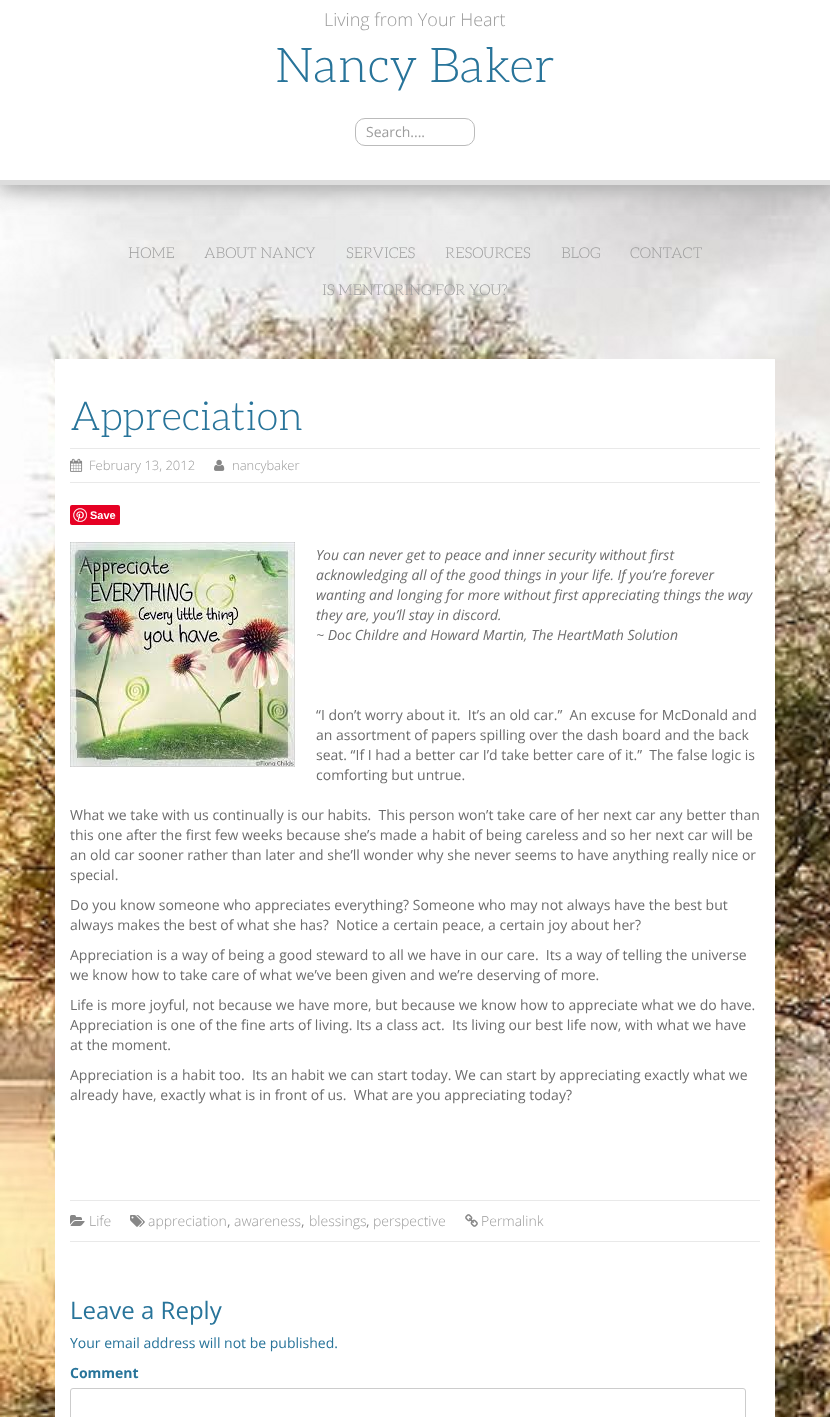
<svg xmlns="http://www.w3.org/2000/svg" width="830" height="1417">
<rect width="100%" height="100%" fill="#fff"/>
<image x="0" y="185" width="830" height="1232" href="media/1.png"/>
<rect y="6" width="830" height="185" fill="#aaa" filter="blur(10px)"/>
<rect width="830" height="180" fill="#fff"/>
<rect y="180" width="830" height="5" fill="#ddd"/>
<text x="324" y="26" style="font-family:Open Sans;font-size:18px;font-weight:300;fill:#9c9c9c">Living from Your Heart</text>
<text x="275" y="82" style="font-family:Aleo;font-size:48px;font-weight:300;fill:#28749a">Nancy Baker</text>
<rect x="355.5" y="118.5" width="119" height="27" rx="9.5" fill="none" stroke="#bbb"/>
<text x="366" y="137" style="font-family:Open Sans;font-size:14px;fill:#9c9c9c">Search....</text>
<text x="128" y="258" style="font-family:Aleo;font-size:15px;font-weight:300;fill:#9c9c9c">HOME</text>
<text x="204" y="258" style="font-family:Aleo;font-size:15px;font-weight:300;fill:#9c9c9c">ABOUT NANCY</text>
<text x="346" y="258" style="font-family:Aleo;font-size:15px;font-weight:300;fill:#9c9c9c">SERVICES</text>
<text x="445" y="258" style="font-family:Aleo;font-size:15px;font-weight:300;fill:#9c9c9c">RESOURCES</text>
<text x="561" y="258" style="font-family:Aleo;font-size:15px;font-weight:300;fill:#9c9c9c">BLOG</text>
<text x="630" y="258" style="font-family:Aleo;font-size:15px;font-weight:300;fill:#9c9c9c">CONTACT</text>
<text x="322" y="295" style="font-family:Aleo;font-size:15px;font-weight:300;fill:#9c9c9c">IS MENTORING FOR YOU?</text>
<rect x="55" y="359" width="720" height="1058" fill="#fff"/>
<text x="70" y="430" style="font-family:Aleo;font-size:40px;font-weight:300;fill:#28749a">Appreciation</text>
<rect x="70" y="448" width="690" height="1" fill="#e9e9e9"/>
<rect x="70" y="482" width="690" height="1" fill="#e9e9e9"/>
<image x="70" y="458" width="13" height="14" href="media/2.png"/>
<text x="89" y="470" style="font-family:Open Sans;font-size:13px;font-weight:300;fill:#9c9c9c">February 13, 2012</text>
<image x="214" y="459" width="11" height="12" href="media/3.png"/>
<text x="232" y="470" style="font-family:Open Sans;font-size:13px;font-weight:300;fill:#9c9c9c">nancybaker</text>
<rect x="70" y="505" width="50" height="20" rx="2" fill="#e60023"/>
<image x="73" y="508" width="14" height="14" href="media/4.png"/>
<text x="90" y="519" style="font-family:Liberation Sans;font-size:11px;font-weight:bold;fill:#fff">Save</text>
<image x="70" y="542" width="225" height="225" href="media/5.png"/>
<text x="316" y="560" style="font-family:Open Sans;font-size:14px;font-style:italic;fill:#6d6d6d">You can never get to peace and inner security without first</text>
<text x="316" y="580" style="font-family:Open Sans;font-size:14px;font-style:italic;fill:#6d6d6d">acknowledging all of the good things in your life. If you’re forever</text>
<text x="316" y="600" style="font-family:Open Sans;font-size:14px;font-style:italic;fill:#6d6d6d">wanting and longing for more without first appreciating things the way</text>
<text x="316" y="620" style="font-family:Open Sans;font-size:14px;font-style:italic;fill:#6d6d6d">they are, you’ll stay in discord.</text>
<text x="316" y="640" style="font-family:Open Sans;font-size:14px;font-style:italic;fill:#6d6d6d">~ Doc Childre and Howard Martin, The HeartMath Solution</text>
<text x="316" y="720" style="font-family:Open Sans;font-size:14px;fill:#6d6d6d" xml:space="preserve">“I don’t worry about it.  It’s an old car.”  An excuse for McDonald and</text>
<text x="316" y="740" style="font-family:Open Sans;font-size:14px;fill:#6d6d6d">an assortment of papers spilling over the dash board and the back</text>
<text x="316" y="760" style="font-family:Open Sans;font-size:14px;fill:#6d6d6d" xml:space="preserve">seat. “If I had a better car I’d take better care of it.”  The false logic is</text>
<text x="316" y="780" style="font-family:Open Sans;font-size:14px;fill:#6d6d6d">comforting but untrue.</text>
<text x="70" y="820" style="font-family:Open Sans;font-size:14px;fill:#6d6d6d" xml:space="preserve">What we take with us continually is our habits.  This person won’t take care of her next car any better than</text>
<text x="70" y="840" style="font-family:Open Sans;font-size:14px;fill:#6d6d6d">this one after the first few weeks because she’s made a habit of being careless and so her next car will be</text>
<text x="70" y="860" style="font-family:Open Sans;font-size:14px;fill:#6d6d6d">an old car sooner rather than later and she’ll wonder why she never seems to have anything really nice or</text>
<text x="70" y="880" style="font-family:Open Sans;font-size:14px;fill:#6d6d6d">special.</text>
<text x="70" y="910" style="font-family:Open Sans;font-size:14px;fill:#6d6d6d">Do you know someone who appreciates everything? Someone who may not always have the best but</text>
<text x="70" y="930" style="font-family:Open Sans;font-size:14px;fill:#6d6d6d" xml:space="preserve">always makes the best of what she has?  Notice a certain peace, a certain joy about her?</text>
<text x="70" y="960" style="font-family:Open Sans;font-size:14px;fill:#6d6d6d" xml:space="preserve">Appreciation is a way of being a good steward to all we have in our care.  Its a way of telling the universe</text>
<text x="70" y="980" style="font-family:Open Sans;font-size:14px;fill:#6d6d6d">we know how to take care of what we’ve been given and we’re deserving of more.</text>
<text x="70" y="1010" style="font-family:Open Sans;font-size:14px;fill:#6d6d6d">Life is more joyful, not because we have more, but because we know how to appreciate what we do have.</text>
<text x="70" y="1030" style="font-family:Open Sans;font-size:14px;fill:#6d6d6d" xml:space="preserve">Appreciation is one of the fine arts of living. Its a class act.  Its living our best life now, with what we have</text>
<text x="70" y="1050" style="font-family:Open Sans;font-size:14px;fill:#6d6d6d">at the moment.</text>
<text x="70" y="1080" style="font-family:Open Sans;font-size:14px;fill:#6d6d6d" xml:space="preserve">Appreciation is a habit too.  Its an habit we can start today. We can start by appreciating exactly what we</text>
<text x="70" y="1100" style="font-family:Open Sans;font-size:14px;fill:#6d6d6d" xml:space="preserve">already have, exactly what is in front of us.  What are you appreciating today?</text>
<rect x="70" y="1200" width="690" height="1" fill="#e9e9e9"/>
<rect x="70" y="1241" width="690" height="1" fill="#e9e9e9"/>
<image x="70" y="1215" width="15" height="11" href="media/6.png"/>
<text x="89" y="1226" style="font-family:Open Sans;font-size:14px;font-weight:300;fill:#9c9c9c">Life</text>
<image x="130" y="1215" width="15" height="12" href="media/7.png"/>
<text x="148" y="1226" style="font-family:Open Sans;font-size:14px;font-weight:300;fill:#9c9c9c">appreciation</text>
<text x="227" y="1226" style="font-family:Open Sans;font-size:14px;fill:#878787">,</text>
<text x="234" y="1226" style="font-family:Open Sans;font-size:14px;font-weight:300;fill:#9c9c9c">awareness</text>
<text x="301" y="1226" style="font-family:Open Sans;font-size:14px;fill:#878787">,</text>
<text x="309" y="1226" style="font-family:Open Sans;font-size:14px;font-weight:300;fill:#9c9c9c">blessings</text>
<text x="366" y="1226" style="font-family:Open Sans;font-size:14px;fill:#878787">,</text>
<text x="373" y="1226" style="font-family:Open Sans;font-size:14px;font-weight:300;fill:#9c9c9c">perspective</text>
<image x="465" y="1214" width="13" height="13" href="media/8.png"/>
<text x="481" y="1226" style="font-family:Open Sans;font-size:14px;font-weight:300;fill:#9c9c9c">Permalink</text>
<text x="70" y="1319" style="font-family:Open Sans;font-size:24px;fill:#28749a">Leave a Reply</text>
<text x="70" y="1348" style="font-family:Open Sans;font-size:14px;fill:#28749a">Your email address will not be published.</text>
<text x="70" y="1378" style="font-family:Open Sans;font-size:14px;font-weight:bold;fill:#28749a">Comment</text>
<rect x="70.5" y="1388.5" width="675" height="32" rx="2.5" fill="none" stroke="#ccc"/>
</svg>
